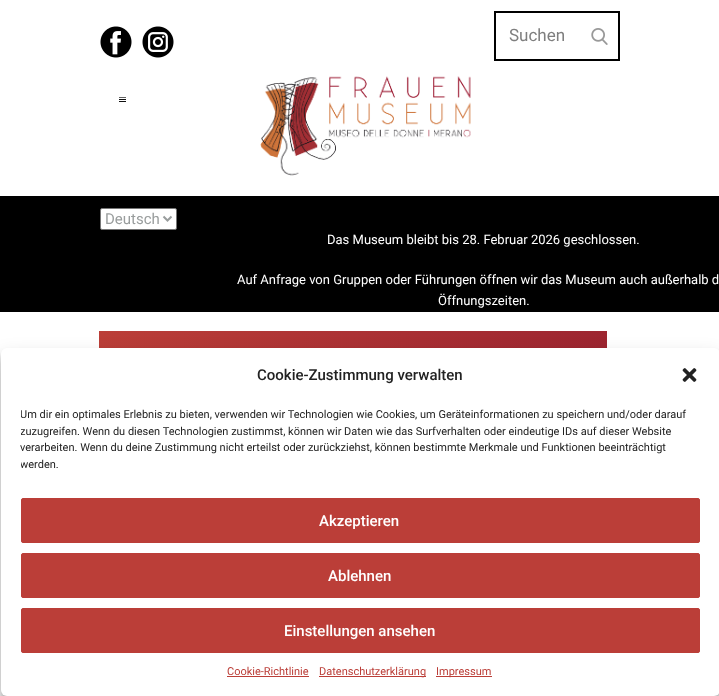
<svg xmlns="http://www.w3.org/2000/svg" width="719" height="696">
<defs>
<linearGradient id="g1" gradientUnits="userSpaceOnUse" x1="99" y1="366" x2="607" y2="366"><stop offset="0" stop-color="#bb3e38"/><stop offset="1" stop-color="#9d2530"/></linearGradient>
<clipPath id="clip1"><rect x="21" y="407" width="679" height="71"/></clipPath>
</defs>
<rect width="100%" height="100%" fill="#fff"/>
<image x="100" y="26" width="32" height="32" href="media/1.png"/>
<image x="142" y="26" width="32" height="32" href="media/2.png"/>
<rect x="495" y="12" width="124" height="48" fill="none" stroke="#000" stroke-width="2"/>
<text x="509" y="41" style="font-family:Roboto;font-size:17px;fill:#7e7e7e">Suchen</text>
<image x="591" y="28" width="17" height="17" href="media/3.png"/>
<rect x="119" y="97" width="7" height="1" fill="#616161"/>
<rect x="119" y="99" width="7" height="1" fill="#111"/>
<rect x="119" y="101" width="7" height="1" fill="#111"/>
<image x="260" y="76" width="211" height="100" href="media/4.png"/>
<rect y="196" width="719" height="116" fill="#000"/>
<rect x="100.5" y="208.5" width="76" height="21" rx="1.5" fill="#fff" stroke="#767676"/>
<path d="M163.5 216.5l4 4l4-4" fill="none" stroke="#999d9d" stroke-width="2"/>
<text x="105" y="224" style="font-family:Roboto;font-size:15px;fill:#999d9d">Deutsch</text>
<text x="327" y="244" style="font-family:Roboto;font-size:13px;fill:#fff">Das Museum bleibt bis 28. Februar 2026 geschlossen.</text>
<text x="237" y="284" style="font-family:Roboto;font-size:13px;fill:#fff">Auf Anfrage von Gruppen oder Führungen öffnen wir das Museum auch außerhalb d</text>
<text x="438" y="305" style="font-family:Roboto;font-size:13px;fill:#fff">Öffnungszeiten.</text>
<rect x="99" y="331" width="508" height="17" fill="url(#g1)"/>
<rect x="1" y="354" width="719" height="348" rx="6" fill="#0000003b" filter="blur(3px)"/>
<rect x="1" y="358" width="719" height="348" rx="6" fill="#00000030" filter="blur(10px)"/>
<rect x="1" y="348" width="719" height="348" rx="6" fill="#fff"/>
<text x="257" y="380" style="font-family:Roboto;font-size:15px;font-weight:500;fill:#222">Cookie-Zustimmung verwalten</text>
<image x="682" y="368" width="15" height="14" href="media/5.png"/>
<g clip-path="url(#clip1)">
<text x="20" y="418" style="font-family:Roboto;font-size:11px;fill:#222">Um dir ein optimales Erlebnis zu bieten, verwenden wir Technologien wie Cookies, um Geräteinformationen zu speichern und/oder darauf</text>
<text x="20" y="435" style="font-family:Roboto;font-size:11px;fill:#222">zuzugreifen. Wenn du diesen Technologien zustimmst, können wir Daten wie das Surfverhalten oder eindeutige IDs auf dieser Website</text>
</g>
<text x="20" y="451" style="font-family:Roboto;font-size:11px;fill:#222">verarbeiten. Wenn du deine Zustimmung nicht erteilst oder zurückziehst, können bestimmte Merkmale und Funktionen beeinträchtigt</text>
<g clip-path="url(#clip1)">
<text x="20" y="468" style="font-family:Roboto;font-size:11px;fill:#222">werden.</text>
</g>
<rect x="21.5" y="498.5" width="678" height="44" rx="1.5" fill="#bb3e38" stroke="#bb3e38"/>
<text x="319" y="526" style="font-family:Roboto;font-size:15px;font-weight:500;fill:#fff">Akzeptieren</text>
<rect x="21.5" y="553.5" width="678" height="44" rx="1.5" fill="#bb3e38" stroke="#bb3e38"/>
<text x="328" y="581" style="font-family:Roboto;font-size:15px;font-weight:500;fill:#fff">Ablehnen</text>
<rect x="21.5" y="608.5" width="678" height="44" rx="1.5" fill="#bb3e38" stroke="#bb3e38"/>
<text x="284" y="636" style="font-family:Roboto;font-size:15px;font-weight:500;fill:#fff">Einstellungen ansehen</text>
<text x="227" y="675" style="font-family:Roboto;font-size:11px;fill:#bb3e38">Cookie-Richtlinie</text>
<rect x="227" y="676" width="82" height="1" fill="#bb3e38"/>
<rect x="319" y="676" width="107" height="1" fill="#bb3e38"/>
<text x="319" y="675" style="font-family:Roboto;font-size:11px;fill:#bb3e38">Datenschutzerklärung</text>
<rect x="436" y="676" width="56" height="1" fill="#bb3e38"/>
<text x="436" y="675" style="font-family:Roboto;font-size:11px;fill:#bb3e38">Impressum</text>
</svg>
